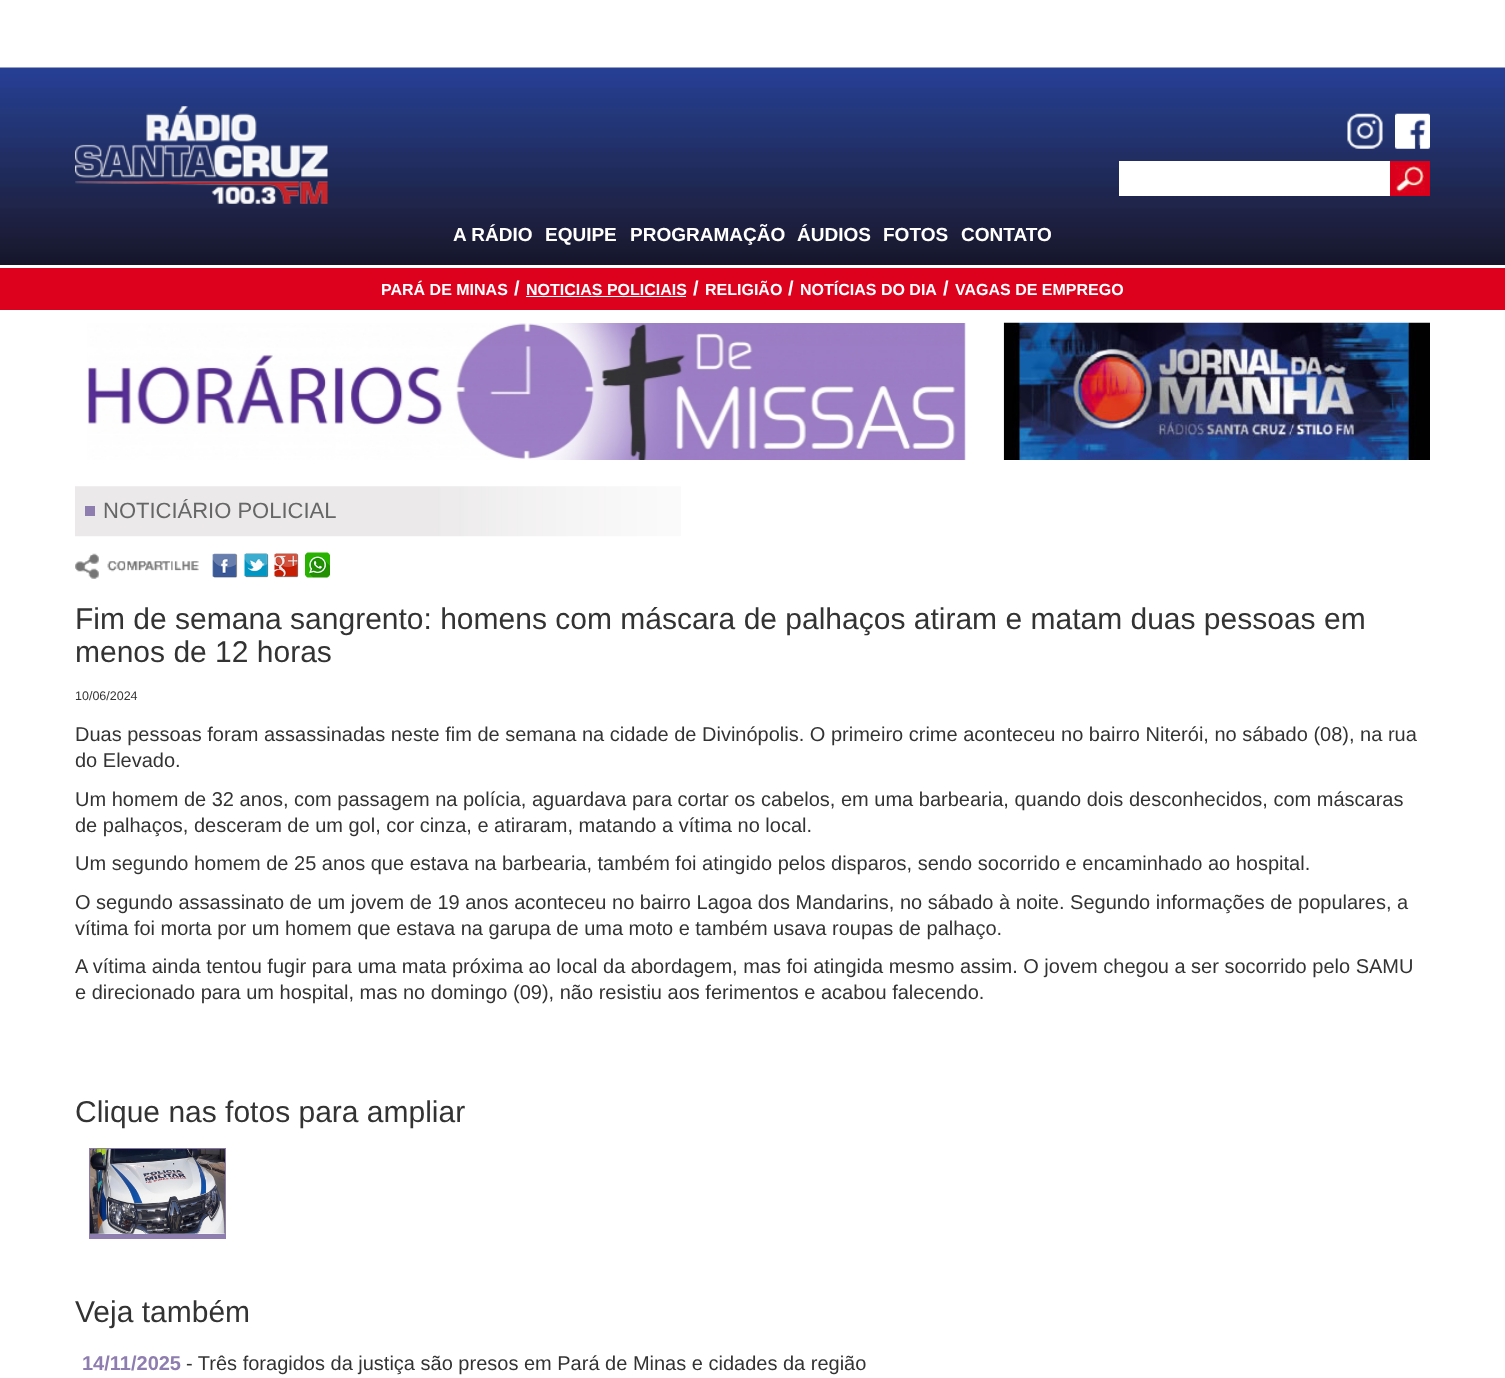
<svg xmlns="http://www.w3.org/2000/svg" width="1505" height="1378">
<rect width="100%" height="100%" fill="#fff"/>
<rect y="264" width="1505" height="1" fill="#181624"/>
<image x="0" y="67" width="1505" height="197" href="media/1.png"/>
<image x="75" y="106" width="253" height="98" href="media/2.png"/>
<image x="1347" y="113" width="36" height="36" href="media/3.png"/>
<image x="1395" y="113" width="35" height="36" href="media/4.png"/>
<rect x="1119" y="161" width="271" height="35" fill="#fff"/>
<rect x="1390" y="161" width="40" height="35" fill="#d9001c"/>
<image x="1395" y="165" width="30" height="28" href="media/5.png"/>
<text x="453" y="241" style="font-family:Liberation Sans;font-size:19px;font-weight:bold;fill:#fff">A RÁDIO</text>
<text x="545" y="241" style="font-family:Liberation Sans;font-size:19px;font-weight:bold;fill:#fff">EQUIPE</text>
<text x="630" y="241" style="font-family:Liberation Sans;font-size:19px;font-weight:bold;fill:#fff">PROGRAMAÇÃO</text>
<text x="797" y="241" style="font-family:Liberation Sans;font-size:19px;font-weight:bold;fill:#fff">ÁUDIOS</text>
<text x="883" y="241" style="font-family:Liberation Sans;font-size:19px;font-weight:bold;fill:#fff">FOTOS</text>
<text x="961" y="241" style="font-family:Liberation Sans;font-size:19px;font-weight:bold;fill:#fff">CONTATO</text>
<rect y="268" width="1505" height="42" fill="#dd011d"/>
<text x="381" y="295" style="font-family:Liberation Sans;font-size:16px;font-weight:bold;fill:#fff">PARÁ DE MINAS</text>
<text x="514" y="295" style="font-family:Liberation Sans;font-size:20px;font-weight:bold;fill:#fff">/</text>
<text x="526" y="295" style="font-family:Liberation Sans;font-size:16px;font-weight:bold;fill:#fff">NOTICIAS POLICIAIS</text>
<rect x="526" y="296" width="160" height="1" fill="#fff"/>
<text x="693" y="295" style="font-family:Liberation Sans;font-size:20px;font-weight:bold;fill:#fff">/</text>
<text x="705" y="295" style="font-family:Liberation Sans;font-size:16px;font-weight:bold;fill:#fff">RELIGIÃO</text>
<text x="788" y="295" style="font-family:Liberation Sans;font-size:20px;font-weight:bold;fill:#fff">/</text>
<text x="800" y="295" style="font-family:Liberation Sans;font-size:16px;font-weight:bold;fill:#fff">NOTÍCIAS DO DIA</text>
<text x="943" y="295" style="font-family:Liberation Sans;font-size:20px;font-weight:bold;fill:#fff">/</text>
<text x="955" y="295" style="font-family:Liberation Sans;font-size:16px;font-weight:bold;fill:#fff">VAGAS DE EMPREGO</text>
<image x="87" y="323" width="879" height="137" href="media/6.png"/>
<image x="1003" y="322" width="427" height="138" href="media/7.png"/>
<image x="75" y="486" width="606" height="51" href="media/8.png"/>
<rect x="85" y="506" width="10" height="10" fill="#8e7eaf"/>
<text x="103" y="518" style="font-family:Liberation Sans;font-size:22px;fill:#666">NOTICIÁRIO POLICIAL</text>
<image x="75" y="553" width="124" height="26" href="media/9.png"/>
<image x="212" y="553" width="26" height="25" href="media/10.png"/>
<image x="244" y="553" width="25" height="25" href="media/11.png"/>
<image x="274" y="553" width="25" height="25" href="media/12.png"/>
<image x="305" y="552" width="25" height="26" href="media/13.png"/>
<text x="75" y="629" style="font-family:Liberation Sans;font-size:30px;fill:#333">Fim de semana sangrento: homens com máscara de palhaços atiram e matam duas pessoas em</text>
<text x="75" y="662" style="font-family:Liberation Sans;font-size:30px;fill:#333">menos de 12 horas</text>
<text x="75" y="700" style="font-family:Liberation Sans;font-size:12.5px;fill:#333">10/06/2024</text>
<text x="75" y="741" style="font-family:Liberation Sans;font-size:20px;fill:#333">Duas pessoas foram assassinadas neste fim de semana na cidade de Divinópolis. O primeiro crime aconteceu no bairro Niterói, no sábado (08), na rua</text>
<text x="75" y="767" style="font-family:Liberation Sans;font-size:20px;fill:#333">do Elevado.</text>
<text x="75" y="806" style="font-family:Liberation Sans;font-size:20px;fill:#333">Um homem de 32 anos, com passagem na polícia, aguardava para cortar os cabelos, em uma barbearia, quando dois desconhecidos, com máscaras</text>
<text x="75" y="832" style="font-family:Liberation Sans;font-size:20px;fill:#333">de palhaços, desceram de um gol, cor cinza, e atiraram, matando a vítima no local.</text>
<text x="75" y="870" style="font-family:Liberation Sans;font-size:20px;fill:#333">Um segundo homem de 25 anos que estava na barbearia, também foi atingido pelos disparos, sendo socorrido e encaminhado ao hospital.</text>
<text x="75" y="909" style="font-family:Liberation Sans;font-size:20px;fill:#333">O segundo assassinato de um jovem de 19 anos aconteceu no bairro Lagoa dos Mandarins, no sábado à noite. Segundo informações de populares, a</text>
<text x="75" y="935" style="font-family:Liberation Sans;font-size:20px;fill:#333">vítima foi morta por um homem que estava na garupa de uma moto e também usava roupas de palhaço.</text>
<text x="75" y="973" style="font-family:Liberation Sans;font-size:20px;fill:#333">A vítima ainda tentou fugir para uma mata próxima ao local da abordagem, mas foi atingida mesmo assim. O jovem chegou a ser socorrido pelo SAMU</text>
<text x="75" y="999" style="font-family:Liberation Sans;font-size:20px;fill:#333">e direcionado para um hospital, mas no domingo (09), não resistiu aos ferimentos e acabou falecendo.</text>
<text x="75" y="1122" style="font-family:Liberation Sans;font-size:30px;fill:#333">Clique nas fotos para ampliar</text>
<rect x="89" y="1148" width="137" height="1" fill="#8e7daf"/>
<rect x="225" y="1148" width="1" height="91" fill="#8e7daf"/>
<rect x="89" y="1234" width="137" height="5" fill="#8e7daf"/>
<rect x="89" y="1148" width="1" height="91" fill="#8e7daf"/>
<image x="90" y="1148" width="135" height="86" href="media/14.png"/>
<text x="75" y="1322" style="font-family:Liberation Sans;font-size:30px;fill:#333">Veja também</text>
<text x="82" y="1370" style="font-family:Liberation Sans;font-size:20px;font-weight:bold;fill:#8e7daf">14/11/2025</text>
<text x="186" y="1370" style="font-family:Liberation Sans;font-size:20px;fill:#333">- Três foragidos da justiça são presos em Pará de Minas e cidades da região</text>
</svg>
